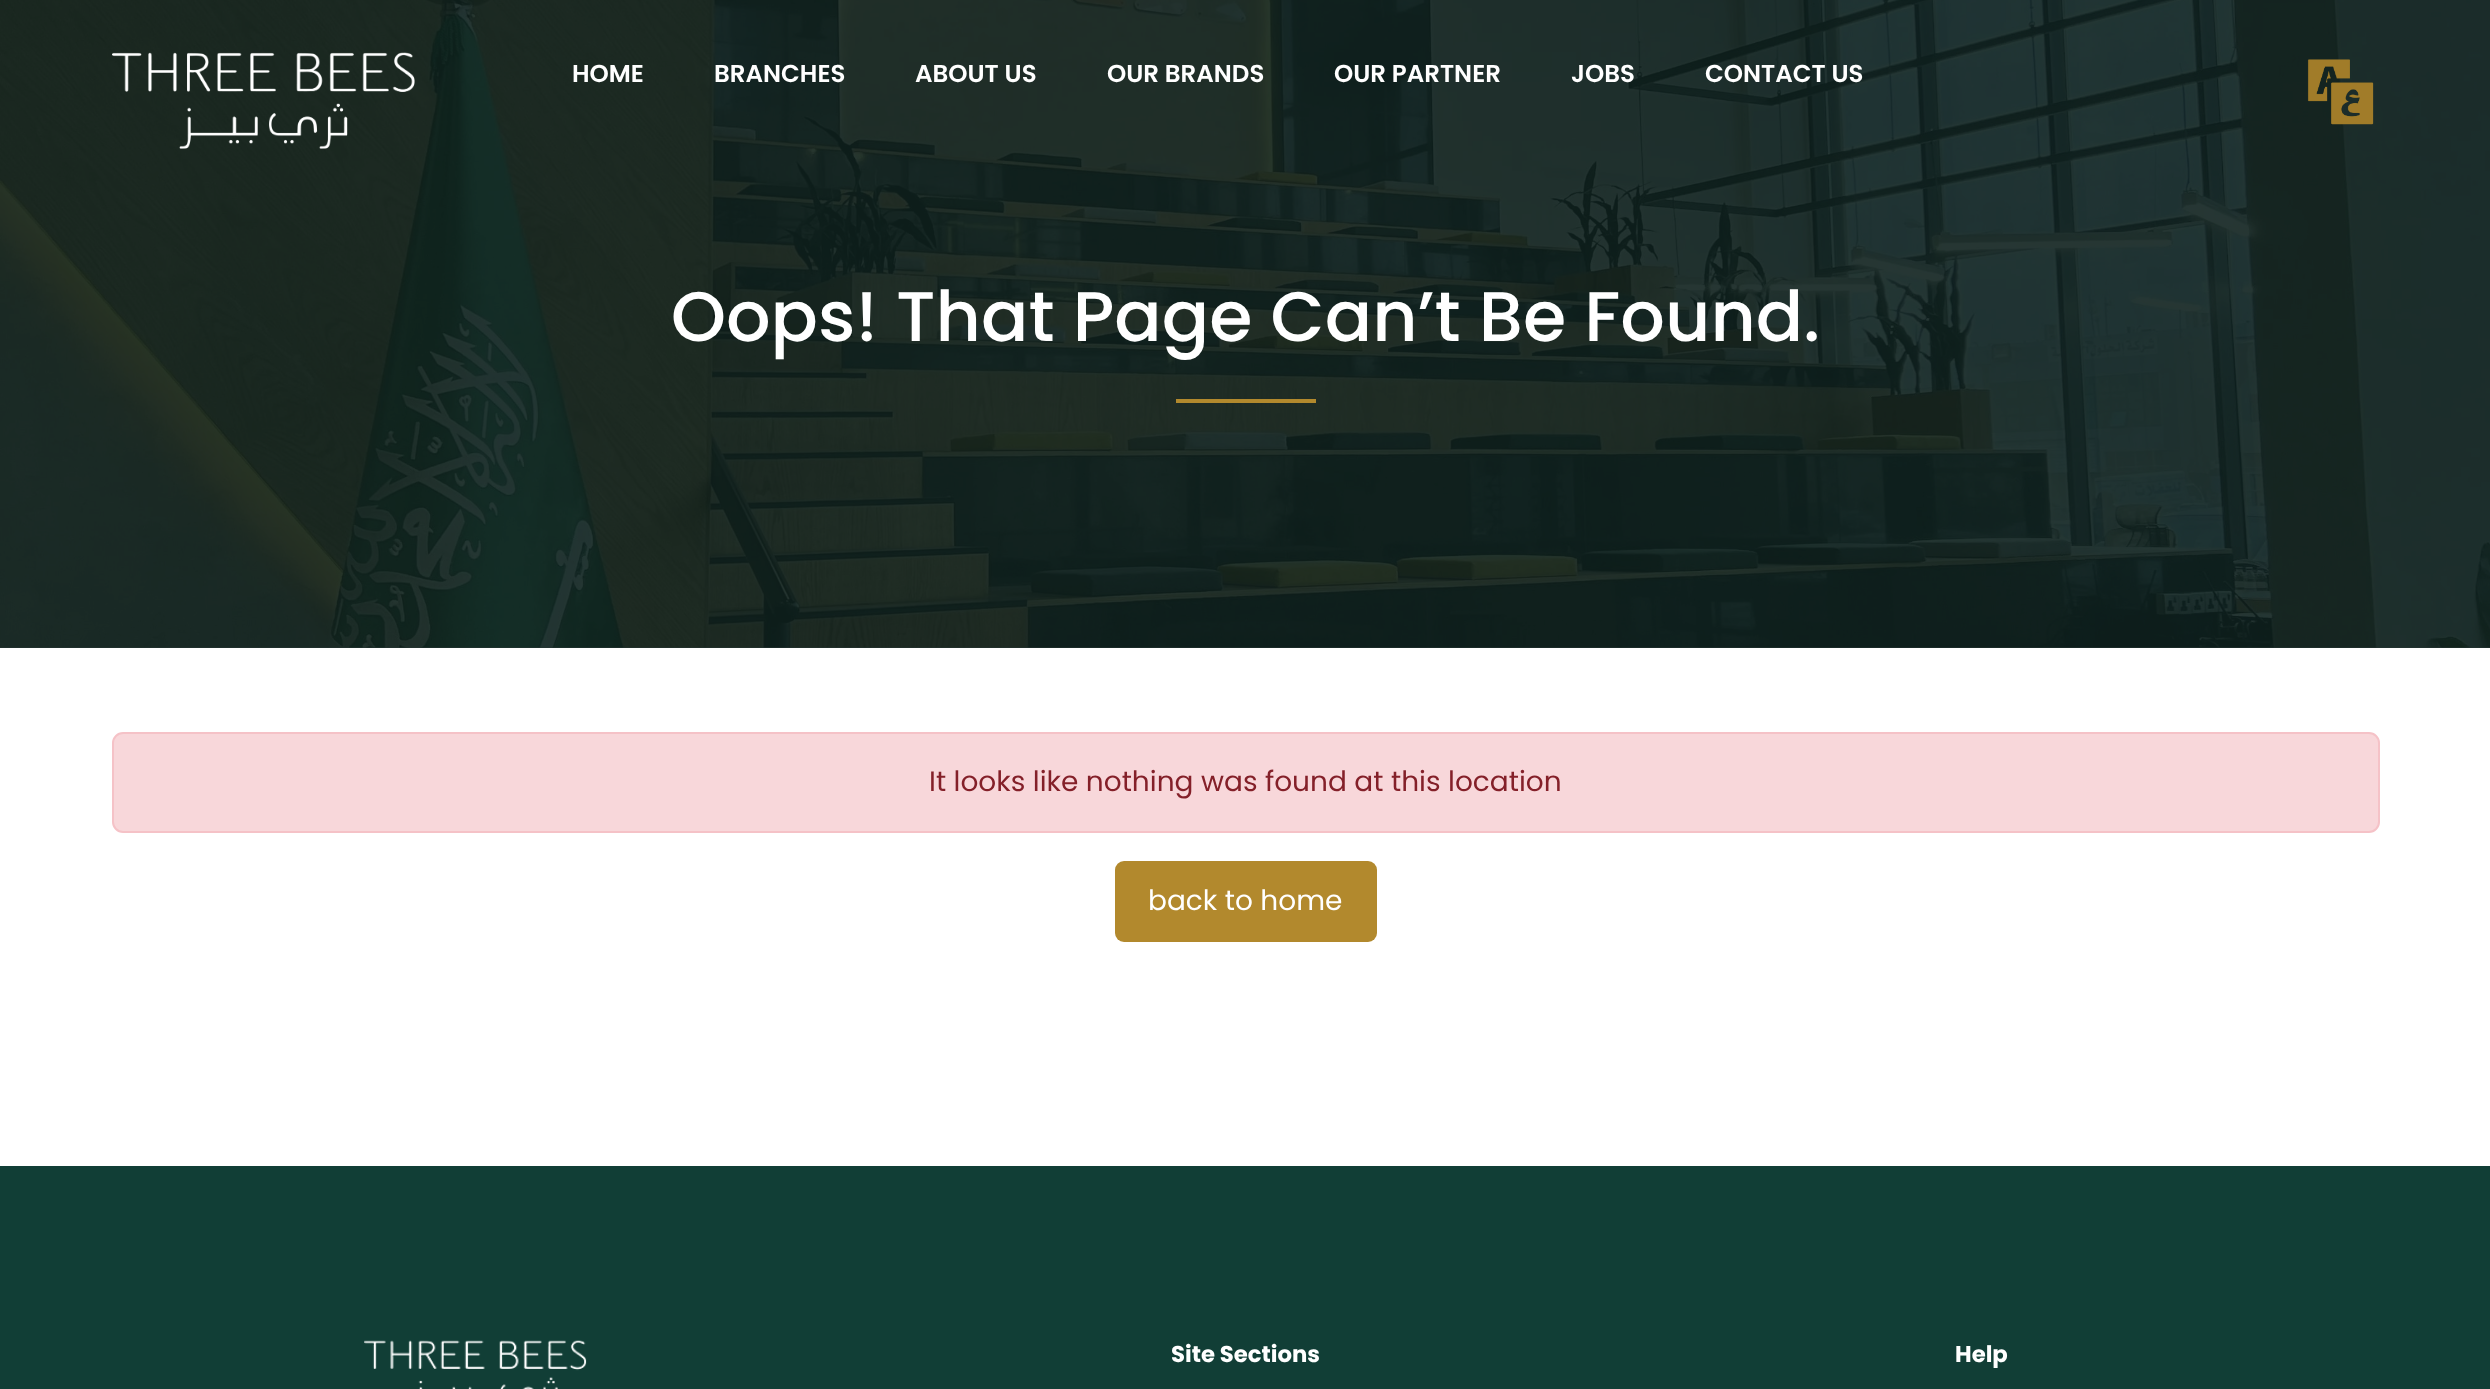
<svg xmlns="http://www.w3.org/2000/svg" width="2490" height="1389">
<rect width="100%" height="100%" fill="#fff"/>
<rect y="647" width="2490" height="1" fill="#263634"/>
<image x="0" y="0" width="2490" height="648" href="media/3.png"/>
<image x="112" y="52" width="303" height="97" href="media/1.png"/>
<text x="572" y="82" style="font-family:Poppins;font-size:24.5px;font-weight:600;fill:#fff">HOME</text>
<text x="714" y="82" style="font-family:Poppins;font-size:24.5px;font-weight:600;fill:#fff">BRANCHES</text>
<text x="915" y="82" style="font-family:Poppins;font-size:24.5px;font-weight:600;fill:#fff">ABOUT US</text>
<text x="1107" y="82" style="font-family:Poppins;font-size:24.5px;font-weight:600;fill:#fff">OUR BRANDS</text>
<text x="1334" y="82" style="font-family:Poppins;font-size:24.5px;font-weight:600;fill:#fff">OUR PARTNER</text>
<text x="1571" y="82" style="font-family:Poppins;font-size:24.5px;font-weight:600;fill:#fff">JOBS</text>
<text x="1705" y="82" style="font-family:Poppins;font-size:24.5px;font-weight:600;fill:#fff">CONTACT US</text>
<image x="2307" y="59" width="67" height="66" href="media/2.png"/>
<text x="671" y="341" style="font-family:Poppins;font-size:70px;font-weight:500;fill:#fff">Oops! That Page Can’t Be Found.</text>
<rect x="1176" y="399" width="140" height="4" fill="#b2892d"/>
<rect x="113" y="733" width="2266" height="99" rx="10" fill="#f8d7da" stroke="#f5c2c7" stroke-width="2"/>
<text x="929" y="791" style="font-family:Poppins;font-size:28px;fill:#842029">It looks like nothing was found at this location</text>
<rect x="1115" y="861" width="262" height="81" rx="9" fill="#b2892d"/>
<text x="1148" y="910" style="font-family:Poppins;font-size:28px;fill:#fff">back to home</text>
<rect y="1166" width="2490" height="223" fill="#113e36"/>
<image x="364" y="1340" width="223" height="49" href="media/4.png"/>
<text x="1171" y="1362" style="font-family:Poppins;font-size:22.75px;font-weight:bold;fill:#fff">Site Sections</text>
<text x="1955" y="1362" style="font-family:Poppins;font-size:22.75px;font-weight:bold;fill:#fff">Help</text>
</svg>
